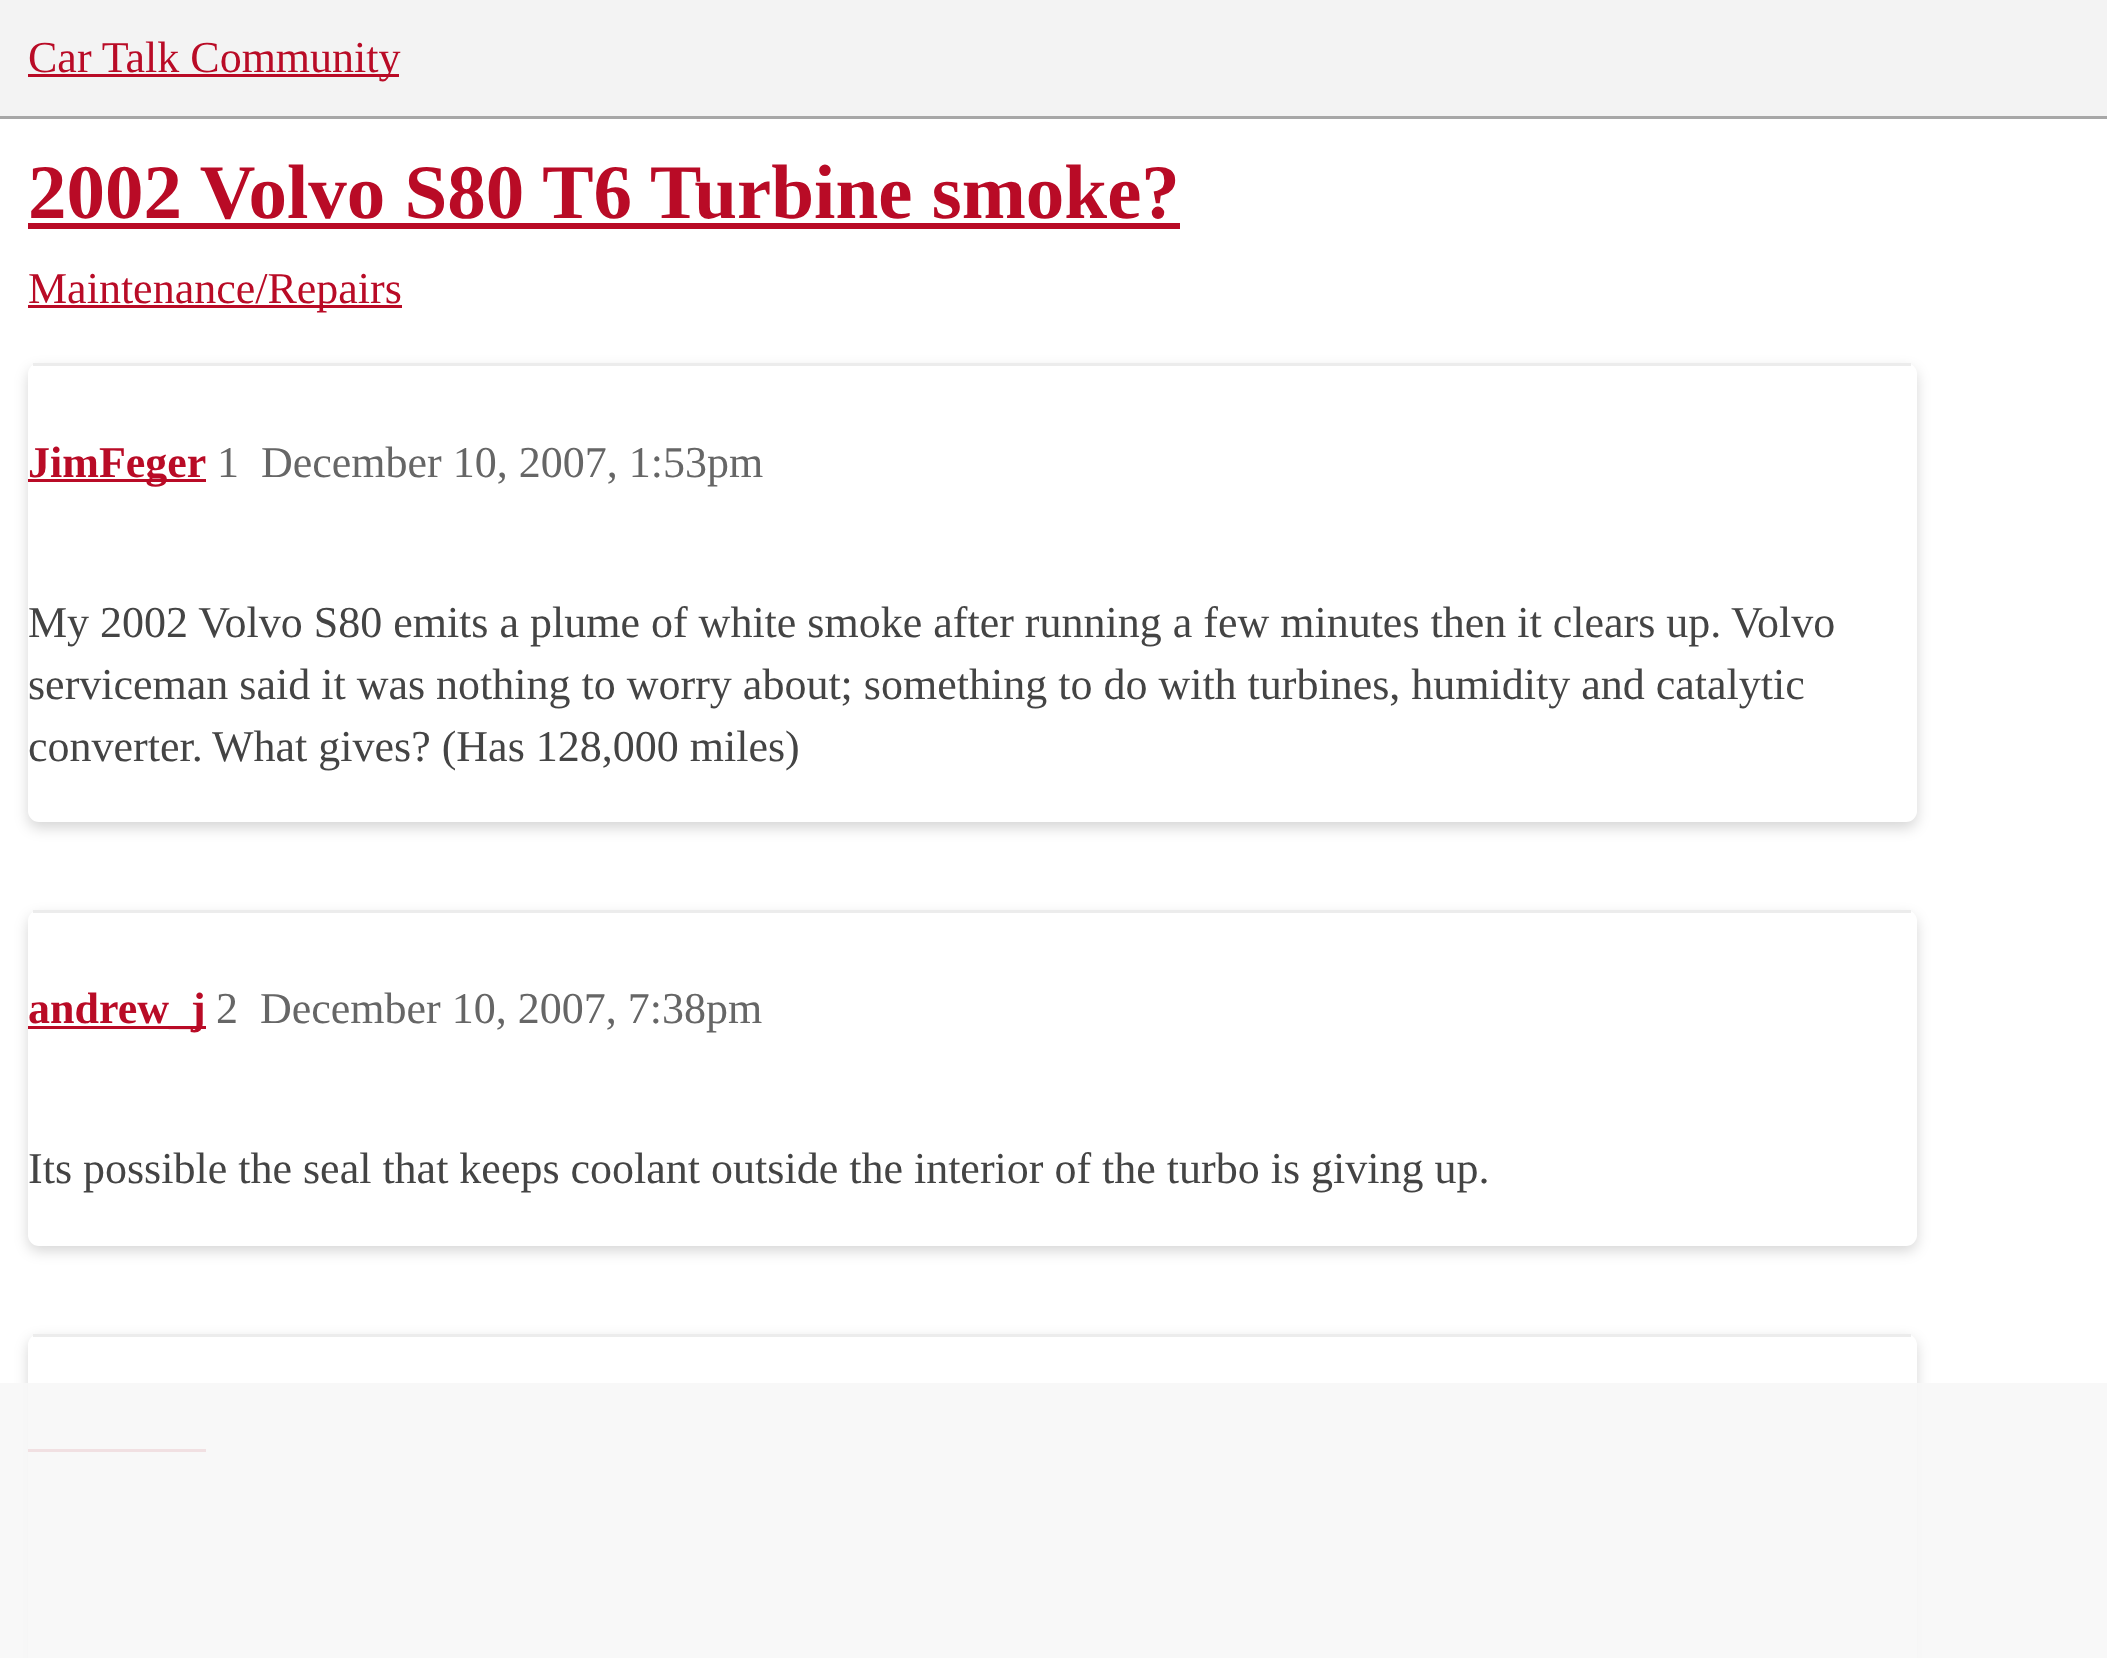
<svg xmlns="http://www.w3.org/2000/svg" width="2107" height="1658">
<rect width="100%" height="100%" fill="#fff"/>
<rect width="2107" height="116" fill="#f3f3f3"/>
<rect y="116" width="2107" height="3" fill="#a7a7a7"/>
<rect x="28" y="74" width="371" height="3" fill="#b90b26"/>
<text x="28" y="72" style="font-family:Liberation Serif;font-size:44px;fill:#b90b26">Car Talk Community</text>
<text x="28" y="218" style="font-family:Liberation Serif;font-size:77px;font-weight:bold;fill:#b90b26">2002 Volvo S80 T6 Turbine smoke?</text>
<rect x="28" y="223" width="1152" height="6" fill="#b90b26"/>
<rect x="28" y="305" width="374" height="3" fill="#b90b26"/>
<text x="28" y="303" style="font-family:Liberation Serif;font-size:44px;fill:#b90b26">Maintenance/Repairs</text>
<rect x="28" y="369" width="1889" height="459" rx="11" fill="#00000029" filter="blur(7px)"/>
<rect x="28" y="363" width="1889" height="459" rx="11" fill="#fff"/>
<rect x="33" y="363" width="1878" height="3" fill="#ececec"/>
<rect x="28" y="479" width="178" height="3" fill="#b90b26"/>
<text x="28" y="477" style="font-family:Liberation Serif;font-size:44px;font-weight:bold;fill:#b90b26">JimFeger</text>
<text x="217" y="477" style="font-family:Liberation Serif;font-size:44px;fill:#666">1</text>
<text x="261" y="477" style="font-family:Liberation Serif;font-size:44px;fill:#666">December 10, 2007, 1:53pm</text>
<text x="28" y="637" style="font-family:Liberation Serif;font-size:44px;fill:#444">My 2002 Volvo S80 emits a plume of white smoke after running a few minutes then it clears up.</text>
<text x="1731" y="637" style="font-family:Liberation Serif;font-size:44px;fill:#444">Volvo</text>
<text x="28" y="699" style="font-family:Liberation Serif;font-size:44px;fill:#444">serviceman said it was nothing to worry about; something to do with turbines, humidity and catalytic</text>
<text x="28" y="761" style="font-family:Liberation Serif;font-size:44px;fill:#444">converter.</text>
<text x="212" y="761" style="font-family:Liberation Serif;font-size:44px;fill:#444">What gives? (Has 128,000 miles)</text>
<rect x="28" y="916" width="1889" height="335" rx="11" fill="#00000029" filter="blur(7px)"/>
<rect x="28" y="910" width="1889" height="336" rx="11" fill="#fff"/>
<rect x="33" y="910" width="1878" height="3" fill="#ececec"/>
<rect x="28" y="1026" width="178" height="3" fill="#b90b26"/>
<text x="28" y="1023" style="font-family:Liberation Serif;font-size:44px;font-weight:bold;fill:#b90b26">andrew_j</text>
<text x="216" y="1023" style="font-family:Liberation Serif;font-size:44px;fill:#666">2</text>
<text x="260" y="1023" style="font-family:Liberation Serif;font-size:44px;fill:#666">December 10, 2007, 7:38pm</text>
<text x="28" y="1183" style="font-family:Liberation Serif;font-size:44px;fill:#444">Its possible the seal that keeps coolant outside the interior of the turbo is giving up.</text>
<rect x="28" y="1339" width="1889" height="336" rx="11" fill="#00000029" filter="blur(7px)"/>
<rect x="28" y="1334" width="1889" height="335" rx="11" fill="#fff"/>
<rect x="33" y="1334" width="1878" height="3" fill="#ececec"/>
<rect x="28" y="1449" width="178" height="3" fill="#b90b26"/>
<rect y="1383" width="2107" height="275" fill="#f7f7f7e6"/>
</svg>
